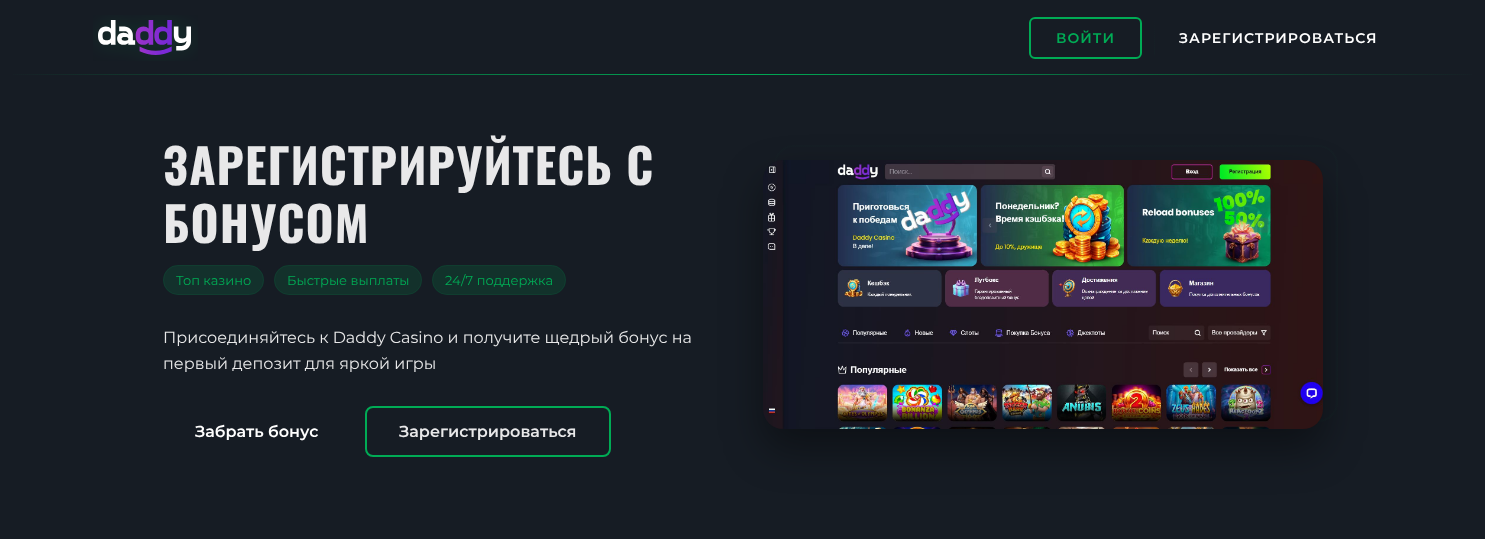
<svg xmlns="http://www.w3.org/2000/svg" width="1485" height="539">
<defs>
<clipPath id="clip1"><rect x="1154" y="17" width="249" height="42" rx="6"/></clipPath>
<linearGradient id="g1" gradientUnits="userSpaceOnUse" x1="957" y1="111" x2="1103" y2="-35"><stop offset="0" stop-color="#161c24"/><stop offset="0.5" stop-color="#142a29"/><stop offset="1" stop-color="#161c24"/></linearGradient>
<linearGradient id="g2" gradientUnits="userSpaceOnUse" x1="0" y1="75" x2="1485" y2="74"><stop offset="0" stop-color="#161c24"/><stop offset="0.5" stop-color="#00ab55"/><stop offset="1" stop-color="#161c24"/></linearGradient>
<linearGradient id="g3" gradientUnits="userSpaceOnUse" x1="261" y1="-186" x2="1224" y2="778"><stop offset="0" stop-color="#161c24" stop-opacity="0.95"/><stop offset="1" stop-color="#161c24" stop-opacity="0.75"/></linearGradient>
</defs>
<rect width="100%" height="100%" fill="#161c24"/>
<image x="93" y="15" width="105" height="46" href="media/1.png"/>
<rect x="1030" y="18" width="111" height="40" rx="5" fill="none" stroke="#00ab55" stroke-width="2"/>
<text x="1056" y="43" style="font-family:Montserrat;font-size:14px;font-weight:600;letter-spacing:1px;fill:#00ab55">ВОЙТИ</text>
<g clip-path="url(#clip1)">
<rect x="1154" y="17" width="1" height="42" fill="url(#g1)"/>
</g>
<text x="1179" y="43" style="font-family:Montserrat;font-size:14px;font-weight:600;letter-spacing:1px;fill:#fff">ЗАРЕГИСТРИРОВАТЬСЯ</text>
<rect x="13" y="74" width="1459" height="1" fill="url(#g2)"/>
<text x="163" y="185" style="font-family:Oswald;font-size:48px;font-weight:bold;letter-spacing:1px;fill:#e8e8e9">ЗАРЕГИСТРИРУЙТЕСЬ С</text>
<text x="163" y="243" style="font-family:Oswald;font-size:48px;font-weight:bold;letter-spacing:1px;fill:#e8e8e9">БОНУСОМ</text>
<rect x="163" y="265" width="101" height="30" rx="15" fill="#13312c"/>
<rect x="163.5" y="265.5" width="100" height="29" rx="14.5" fill="none" stroke="#00ab551a"/>
<text x="176" y="285" style="font-family:Montserrat;font-size:13px;fill:#00ab55">Топ казино</text>
<rect x="274" y="265" width="148" height="30" rx="15" fill="#13312b"/>
<rect x="274.5" y="265.5" width="147" height="29" rx="14.5" fill="none" stroke="#00ab551a"/>
<text x="287" y="285" style="font-family:Montserrat;font-size:13px;fill:#00ab55">Быстрые выплаты</text>
<rect x="432" y="265" width="134" height="30" rx="15" fill="#12322b"/>
<rect x="432.5" y="265.5" width="133" height="29" rx="14.5" fill="none" stroke="#00ab551a"/>
<text x="445" y="285" style="font-family:Montserrat;font-size:13px;fill:#00ab55">24/7 поддержка</text>
<text x="163" y="343" style="font-family:Montserrat;font-size:16px;fill:#e8e8e9">Присоединяйтесь к Daddy Casino и получите щедрый бонус на</text>
<text x="163" y="369" style="font-family:Montserrat;font-size:16px;fill:#e8e8e9">первый депозит для яркой игры</text>
<text x="195" y="437" style="font-family:Montserrat;font-size:16px;font-weight:600;fill:#fff">Забрать бонус</text>
<rect x="366" y="407" width="244" height="49" rx="7" fill="none" stroke="#00ab55" stroke-width="2"/>
<text x="399" y="437" style="font-family:Montserrat;font-size:16px;font-weight:600;fill:#e8e8e9">Зарегистрироваться</text>
<rect x="775" y="146" width="562" height="275" rx="19" fill="none" stroke="#142a29" stroke-width="2"/>
<rect x="774" y="145" width="564" height="277" fill="url(#g3)"/>
<rect x="763" y="180" width="560" height="269" rx="20" fill="#00000066" filter="blur(20px)"/>
<image x="763" y="160" width="560" height="269" href="media/2.png"/>
</svg>
